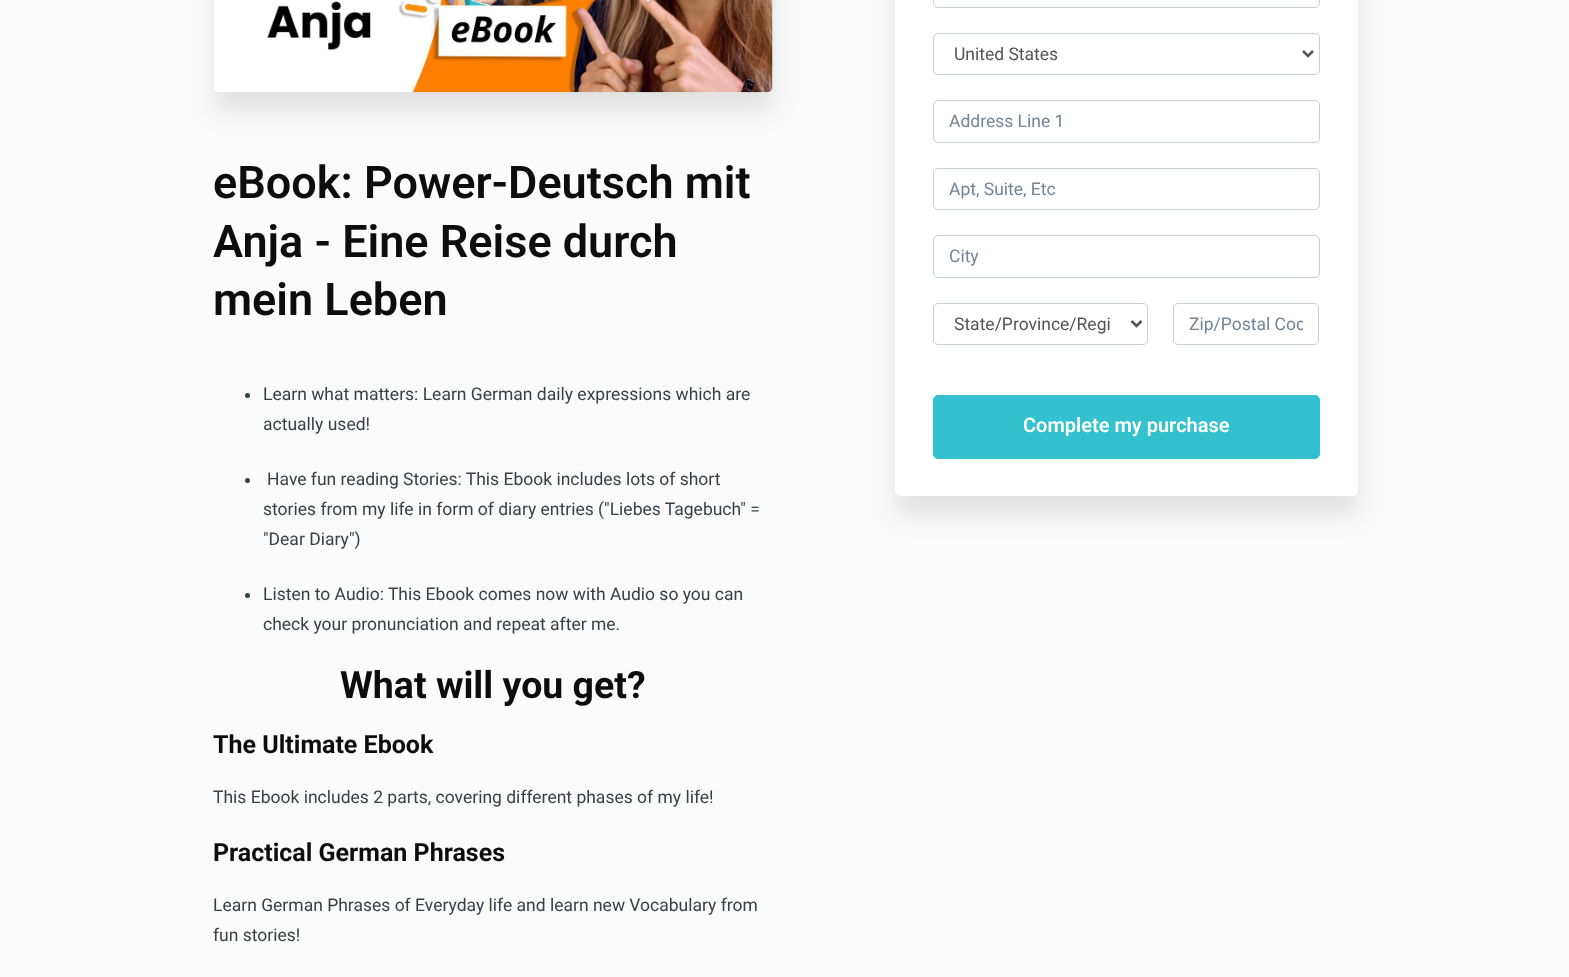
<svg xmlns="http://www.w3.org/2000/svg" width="1569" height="977">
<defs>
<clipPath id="clip1"><rect x="1189" y="314" width="114" height="20"/></clipPath>
</defs>
<rect width="100%" height="100%" fill="#fbfbfb"/>
<rect x="214" y="-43" width="559" height="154" rx="5" fill="#0000001a" filter="blur(12.5px)"/>
<image x="214" y="0" width="559" height="93" href="media/1.png"/>
<text x="213" y="198" style="font-family:Roboto;font-size:45px;font-weight:600;fill:#0d0d0d">eBook: Power-Deutsch mit</text>
<text x="213" y="257" style="font-family:Roboto;font-size:45px;font-weight:600;fill:#0d0d0d">Anja - Eine Reise durch</text>
<text x="213" y="315" style="font-family:Roboto;font-size:45px;font-weight:600;fill:#0d0d0d">mein Leben</text>
<circle cx="247.5" cy="395.5" r="2.5" fill="#373f47"/>
<text x="263" y="400" style="font-family:Roboto;font-size:17.5px;fill:#373f47">Learn what matters: Learn German daily expressions which are</text>
<text x="263" y="430" style="font-family:Roboto;font-size:17.5px;fill:#373f47">actually used!</text>
<circle cx="247.5" cy="480.5" r="2.5" fill="#373f47"/>
<text x="267" y="485" style="font-family:Roboto;font-size:17.5px;fill:#373f47">Have fun reading Stories: This Ebook includes lots of short</text>
<text x="263" y="515" style="font-family:Roboto;font-size:17.5px;fill:#373f47">stories from my life in form of diary entries ("Liebes Tagebuch" =</text>
<text x="263" y="545" style="font-family:Roboto;font-size:17.5px;fill:#373f47">"Dear Diary")</text>
<circle cx="247.5" cy="595.5" r="2.5" fill="#373f47"/>
<text x="263" y="600" style="font-family:Roboto;font-size:17.5px;fill:#373f47">Listen to Audio: This Ebook comes now with Audio so you can</text>
<text x="263" y="630" style="font-family:Roboto;font-size:17.5px;fill:#373f47">check your pronunciation and repeat after me.</text>
<text x="340" y="698" style="font-family:Roboto;font-size:37.5px;font-weight:bold;fill:#0d0d0d">What will you get?</text>
<text x="213" y="753" style="font-family:Roboto;font-size:25px;font-weight:bold;fill:#0d0d0d">The Ultimate Ebook</text>
<text x="213" y="803" style="font-family:Roboto;font-size:17.5px;fill:#373f47">This Ebook includes 2 parts, covering different phases of my life!</text>
<text x="213" y="861" style="font-family:Roboto;font-size:25px;font-weight:bold;fill:#0d0d0d">Practical German Phrases</text>
<text x="213" y="911" style="font-family:Roboto;font-size:17.5px;fill:#373f47">Learn German Phrases of Everyday life and learn new Vocabulary from</text>
<text x="213" y="941" style="font-family:Roboto;font-size:17.5px;fill:#373f47">fun stories!</text>
<rect x="895" y="-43" width="463" height="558" rx="5" fill="#0000001a" filter="blur(12.5px)"/>
<rect x="895" y="-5" width="463" height="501" rx="5" fill="#fff"/>
<rect x="933.5" y="-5.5" width="386" height="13" rx="4.5" fill="none" stroke="#c7cfd8"/>
<rect x="933.5" y="33.5" width="386" height="41" rx="4.5" fill="none" stroke="#c7cfd8"/>
<path d="M1303 51l5 5l5-5" fill="none" stroke="#555" stroke-width="2.5"/>
<text x="954" y="60" style="font-family:Roboto;font-size:17.5px;fill:#555">United States</text>
<rect x="933.5" y="100.5" width="386" height="42" rx="4.5" fill="none" stroke="#c7cfd8"/>
<text x="949" y="127" style="font-family:Roboto;font-size:17.5px;fill:#748493">Address Line 1</text>
<rect x="933.5" y="168.5" width="386" height="41" rx="4.5" fill="none" stroke="#c7cfd8"/>
<text x="949" y="195" style="font-family:Roboto;font-size:17.5px;fill:#748493">Apt, Suite, Etc</text>
<rect x="933.5" y="235.5" width="386" height="42" rx="4.5" fill="none" stroke="#c7cfd8"/>
<text x="949" y="262" style="font-family:Roboto;font-size:17.5px;fill:#748493">City</text>
<rect x="933.5" y="303.5" width="214" height="41" rx="4.5" fill="none" stroke="#c7cfd8"/>
<path d="M1131.5 321l5 5l5-5" fill="none" stroke="#555" stroke-width="2.5"/>
<text x="954" y="330" style="font-family:Roboto;font-size:17.5px;fill:#555">State/Province/Regi</text>
<rect x="1173.5" y="303.5" width="145" height="41" rx="4.5" fill="none" stroke="#c7cfd8"/>
<g clip-path="url(#clip1)">
<text x="1189" y="330" style="font-family:Roboto;font-size:17.5px;fill:#748493">Zip/Postal Cod</text>
</g>
<rect x="933.5" y="395.5" width="386" height="63" rx="4.5" fill="#33c1cf" stroke="#33c1cf"/>
<text x="1023" y="432" style="font-family:Roboto;font-size:20px;font-weight:600;fill:#fff">Complete my purchase</text>
</svg>
